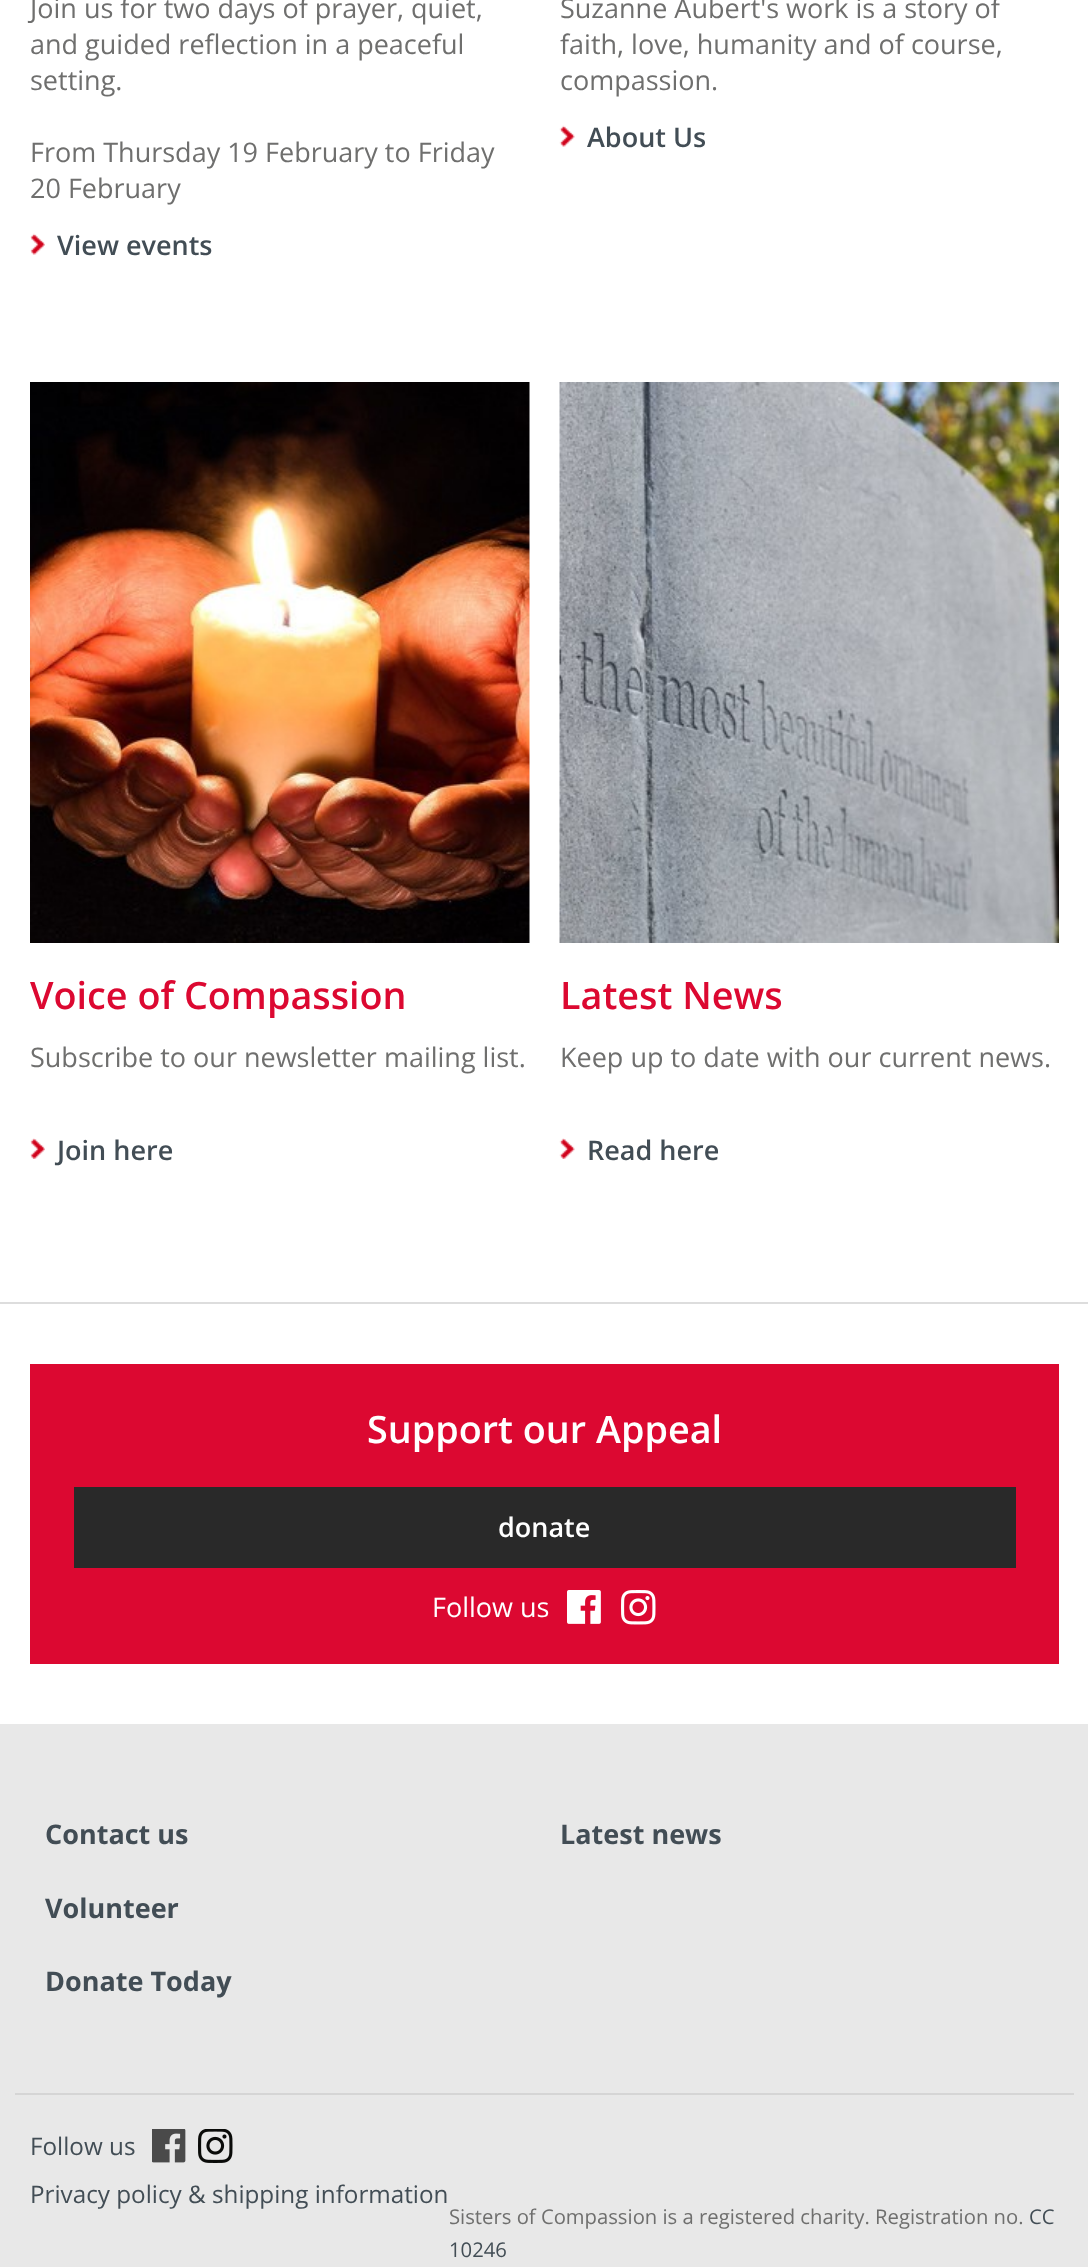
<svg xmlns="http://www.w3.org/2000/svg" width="1088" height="2267">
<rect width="100%" height="100%" fill="#fff"/>
<text x="30" y="18" style="font-family:Open Sans;font-size:27px;fill:#6f6f6e">Join us for two days of prayer, quiet,</text>
<text x="30" y="54" style="font-family:Open Sans;font-size:27px;fill:#6f6f6e">and guided reflection in a peaceful</text>
<text x="30" y="90" style="font-family:Open Sans;font-size:27px;fill:#6f6f6e">setting.</text>
<text x="30" y="162" style="font-family:Open Sans;font-size:27px;fill:#6f6f6e">From Thursday 19 February to Friday</text>
<text x="30" y="198" style="font-family:Open Sans;font-size:27px;fill:#6f6f6e">20 February</text>
<image x="30" y="233" width="15" height="22" href="media/1.png"/>
<text x="57" y="255" style="font-family:Open Sans;font-size:27px;font-weight:600;fill:#424d55">View events</text>
<text x="560" y="18" style="font-family:Open Sans;font-size:27px;fill:#6f6f6e">Suzanne Aubert's work is a story of</text>
<text x="560" y="54" style="font-family:Open Sans;font-size:27px;fill:#6f6f6e">faith, love, humanity and of course,</text>
<text x="560" y="90" style="font-family:Open Sans;font-size:27px;fill:#6f6f6e">compassion.</text>
<image x="559" y="125" width="16" height="22" href="media/2.png"/>
<text x="587" y="147" style="font-family:Open Sans;font-size:27px;font-weight:600;fill:#424d55">About Us</text>
<image x="30" y="382" width="500" height="561" href="media/3.png"/>
<text x="30" y="1009" style="font-family:Open Sans;font-size:37.75px;font-weight:600;fill:#dc0831">Voice of Compassion</text>
<text x="30" y="1067" style="font-family:Open Sans;font-size:27px;fill:#6f6f6e">Subscribe to our newsletter mailing list.</text>
<image x="30" y="1138" width="15" height="21" href="media/4.png"/>
<text x="57" y="1160" style="font-family:Open Sans;font-size:27px;font-weight:600;fill:#424d55">Join here</text>
<image x="559" y="382" width="500" height="561" href="media/5.png"/>
<text x="560" y="1009" style="font-family:Open Sans;font-size:37.75px;font-weight:600;fill:#dc0831">Latest News</text>
<text x="560" y="1067" style="font-family:Open Sans;font-size:27px;fill:#6f6f6e">Keep up to date with our current news.</text>
<image x="559" y="1138" width="16" height="21" href="media/6.png"/>
<text x="587" y="1160" style="font-family:Open Sans;font-size:27px;font-weight:600;fill:#424d55">Read here</text>
<rect y="1302" width="1088" height="2" fill="#ddd"/>
<rect x="30" y="1364" width="1029" height="300" fill="#dc0831"/>
<text x="367" y="1443" style="font-family:Open Sans;font-size:37.75px;font-weight:600;fill:#fff">Support our Appeal</text>
<rect x="74" y="1487" width="942" height="81" fill="#292929"/>
<text x="498" y="1537" style="font-family:Open Sans;font-size:27px;font-weight:600;fill:#fff">donate</text>
<text x="432" y="1617" style="font-family:Open Sans;font-size:27px;fill:#fff">Follow us</text>
<image x="567" y="1590" width="34" height="34" href="media/7.png"/>
<image x="621" y="1590" width="35" height="35" href="media/8.png"/>
<rect y="1724" width="1088" height="543" fill="#e8e8e8"/>
<rect x="15" y="2093" width="1059" height="2" fill="#d5d5d5"/>
<text x="45" y="1844" style="font-family:Open Sans;font-size:27px;font-weight:bold;fill:#424d55">Contact us</text>
<text x="560" y="1844" style="font-family:Open Sans;font-size:27px;font-weight:bold;fill:#424d55">Latest news</text>
<text x="45" y="1918" style="font-family:Open Sans;font-size:27px;font-weight:bold;fill:#424d55">Volunteer</text>
<text x="45" y="1991" style="font-family:Open Sans;font-size:27px;font-weight:bold;fill:#424d55">Donate Today</text>
<text x="30" y="2155" style="font-family:Open Sans;font-size:24.25px;fill:#424d55">Follow us</text>
<image x="152" y="2129" width="34" height="34" href="media/9.png"/>
<image x="198" y="2129" width="35" height="34" href="media/10.png"/>
<text x="30" y="2203" style="font-family:Open Sans;font-size:24.25px;fill:#424d55">Privacy policy &amp; shipping information</text>
<text x="449" y="2224" style="font-family:Open Sans;font-size:20.25px;fill:#6f6f6e">Sisters of Compassion is a registered charity. Registration no.</text>
<text x="1029" y="2224" style="font-family:Open Sans;font-size:20.25px;fill:#424d55">CC</text>
<text x="449" y="2257" style="font-family:Open Sans;font-size:20.25px;fill:#424d55">10246</text>
</svg>
